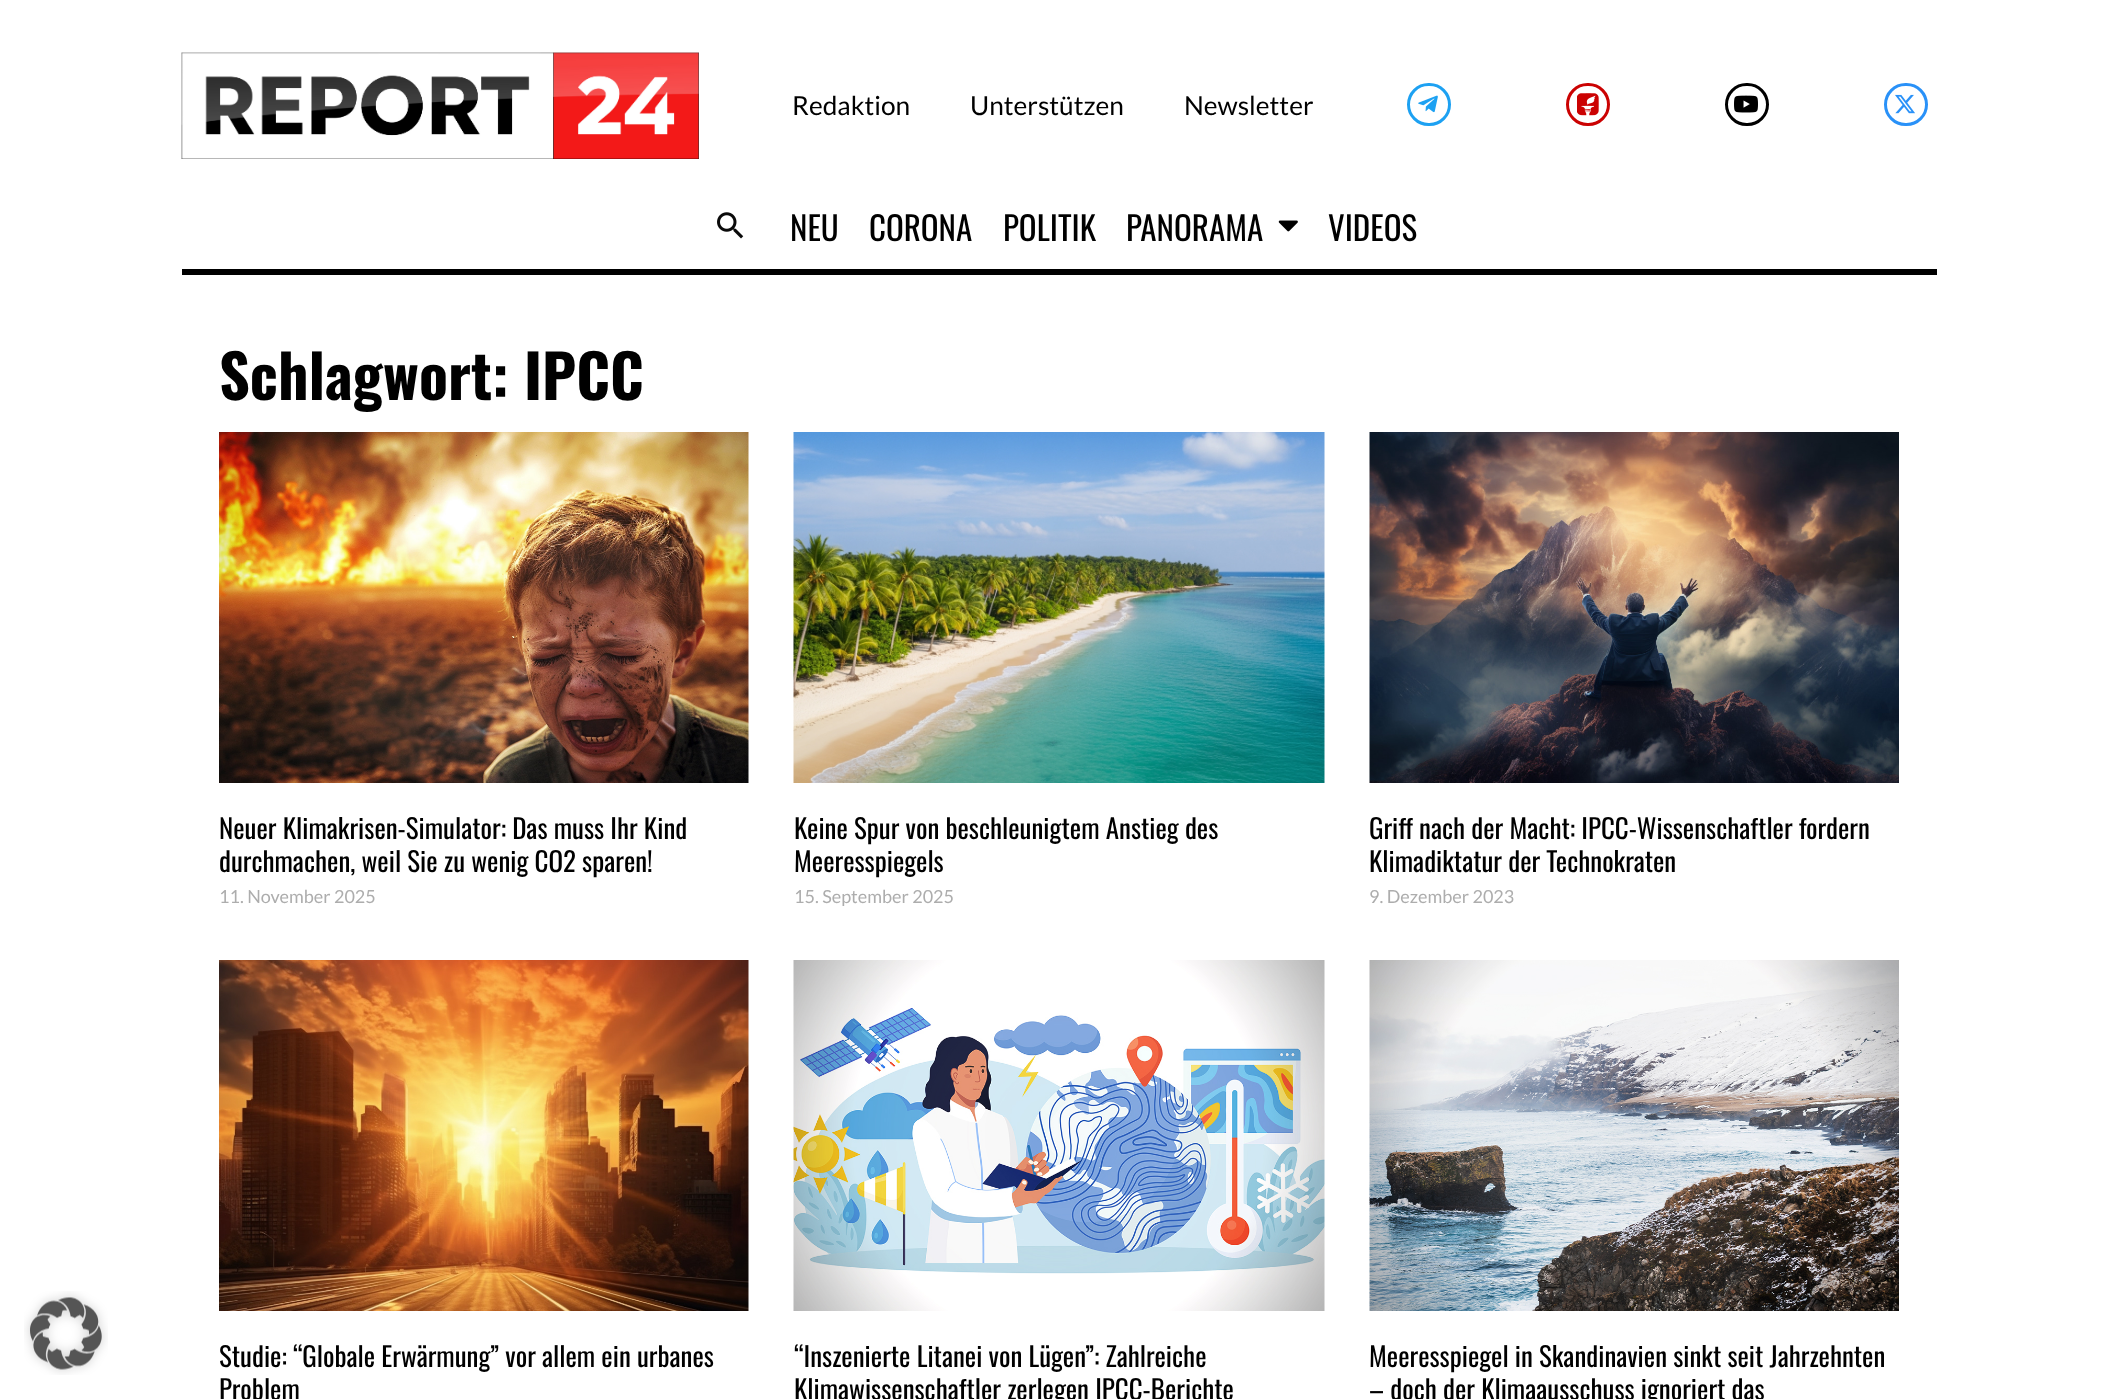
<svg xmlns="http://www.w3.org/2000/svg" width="2117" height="1399">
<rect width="100%" height="100%" fill="#fff"/>
<image x="24" y="1291" width="84" height="84" href="media/1.png"/>
<image x="181" y="52" width="518" height="107" href="media/2.png"/>
<text x="792" y="115" style="font-family:Lato;font-size:26.25px;fill:#000">Redaktion</text>
<text x="970" y="115" style="font-family:Lato;font-size:26.25px;fill:#000">Unterstützen</text>
<text x="1184" y="115" style="font-family:Lato;font-size:26.25px;fill:#000">Newsletter</text>
<rect x="1408.5" y="84.5" width="41" height="40" rx="20" fill="none" stroke="#1da1f2" stroke-width="3"/>
<image x="1418" y="95" width="20" height="18" href="media/3.png"/>
<rect x="1567.5" y="84.5" width="41" height="40" rx="20" fill="none" stroke="#cb0202" stroke-width="3"/>
<image x="1577" y="93" width="22" height="23" href="media/4.png"/>
<rect x="1726.5" y="84.5" width="41" height="40" rx="20" fill="none" stroke="#000" stroke-width="3"/>
<image x="1734" y="95" width="24" height="18" href="media/5.png"/>
<rect x="1885.5" y="84.5" width="41" height="40" rx="20" fill="none" stroke="#2991f8" stroke-width="3"/>
<image x="1895" y="94" width="20" height="20" href="media/6.png"/>
<image x="717" y="212" width="27" height="27" href="media/7.png"/>
<text x="790" y="241" style="font-family:Oswald;font-size:33px;fill:#000">NEU</text>
<text x="869" y="241" style="font-family:Oswald;font-size:33px;fill:#000">CORONA</text>
<text x="1003" y="241" style="font-family:Oswald;font-size:33px;fill:#000">POLITIK</text>
<text x="1126" y="241" style="font-family:Oswald;font-size:33px;fill:#000">PANORAMA</text>
<image x="1278" y="220" width="20" height="12" href="media/8.png"/>
<text x="1328" y="241" style="font-family:Oswald;font-size:33px;fill:#000">VIDEOS</text>
<rect x="182" y="269" width="1755" height="6" fill="#000"/>
<text x="219" y="400" style="font-family:Oswald;font-size:60px;font-weight:bold;fill:#000">Schlagwort: IPCC</text>
<image x="219" y="432" width="530" height="351" href="media/9.png"/>
<text x="219" y="839" style="font-family:Oswald;font-size:27px;fill:#000">Neuer Klimakrisen-Simulator: Das muss Ihr Kind</text>
<text x="219" y="872" style="font-family:Oswald;font-size:27px;fill:#000">durchmachen, weil Sie zu wenig CO2 sparen!</text>
<text x="219" y="903" style="font-family:Lato;font-size:18px;fill:#adadad">11. November 2025</text>
<image x="793" y="432" width="532" height="351" href="media/10.png"/>
<text x="794" y="839" style="font-family:Oswald;font-size:27px;fill:#000">Keine Spur von beschleunigtem Anstieg des</text>
<text x="794" y="872" style="font-family:Oswald;font-size:27px;fill:#000">Meeresspiegels</text>
<text x="794" y="903" style="font-family:Lato;font-size:18px;fill:#adadad">15. September 2025</text>
<image x="1369" y="432" width="530" height="351" href="media/11.png"/>
<text x="1369" y="839" style="font-family:Oswald;font-size:27px;fill:#000">Griff nach der Macht: IPCC-Wissenschaftler fordern</text>
<text x="1369" y="872" style="font-family:Oswald;font-size:27px;fill:#000">Klimadiktatur der Technokraten</text>
<text x="1369" y="903" style="font-family:Lato;font-size:18px;fill:#adadad">9. Dezember 2023</text>
<image x="219" y="960" width="530" height="351" href="media/12.png"/>
<text x="219" y="1367" style="font-family:Oswald;font-size:27px;fill:#000">Studie: “Globale Erwärmung” vor allem ein urbanes</text>
<text x="219" y="1400" style="font-family:Oswald;font-size:27px;fill:#000">Problem</text>
<image x="793" y="960" width="532" height="351" href="media/13.png"/>
<text x="794" y="1367" style="font-family:Oswald;font-size:27px;fill:#000">“Inszenierte Litanei von Lügen”: Zahlreiche</text>
<text x="794" y="1400" style="font-family:Oswald;font-size:27px;fill:#000">Klimawissenschaftler zerlegen IPCC-Berichte</text>
<image x="1369" y="960" width="530" height="351" href="media/14.png"/>
<text x="1369" y="1367" style="font-family:Oswald;font-size:27px;fill:#000">Meeresspiegel in Skandinavien sinkt seit Jahrzehnten</text>
<text x="1369" y="1400" style="font-family:Oswald;font-size:27px;fill:#000">– doch der Klimaausschuss ignoriert das</text>
</svg>
